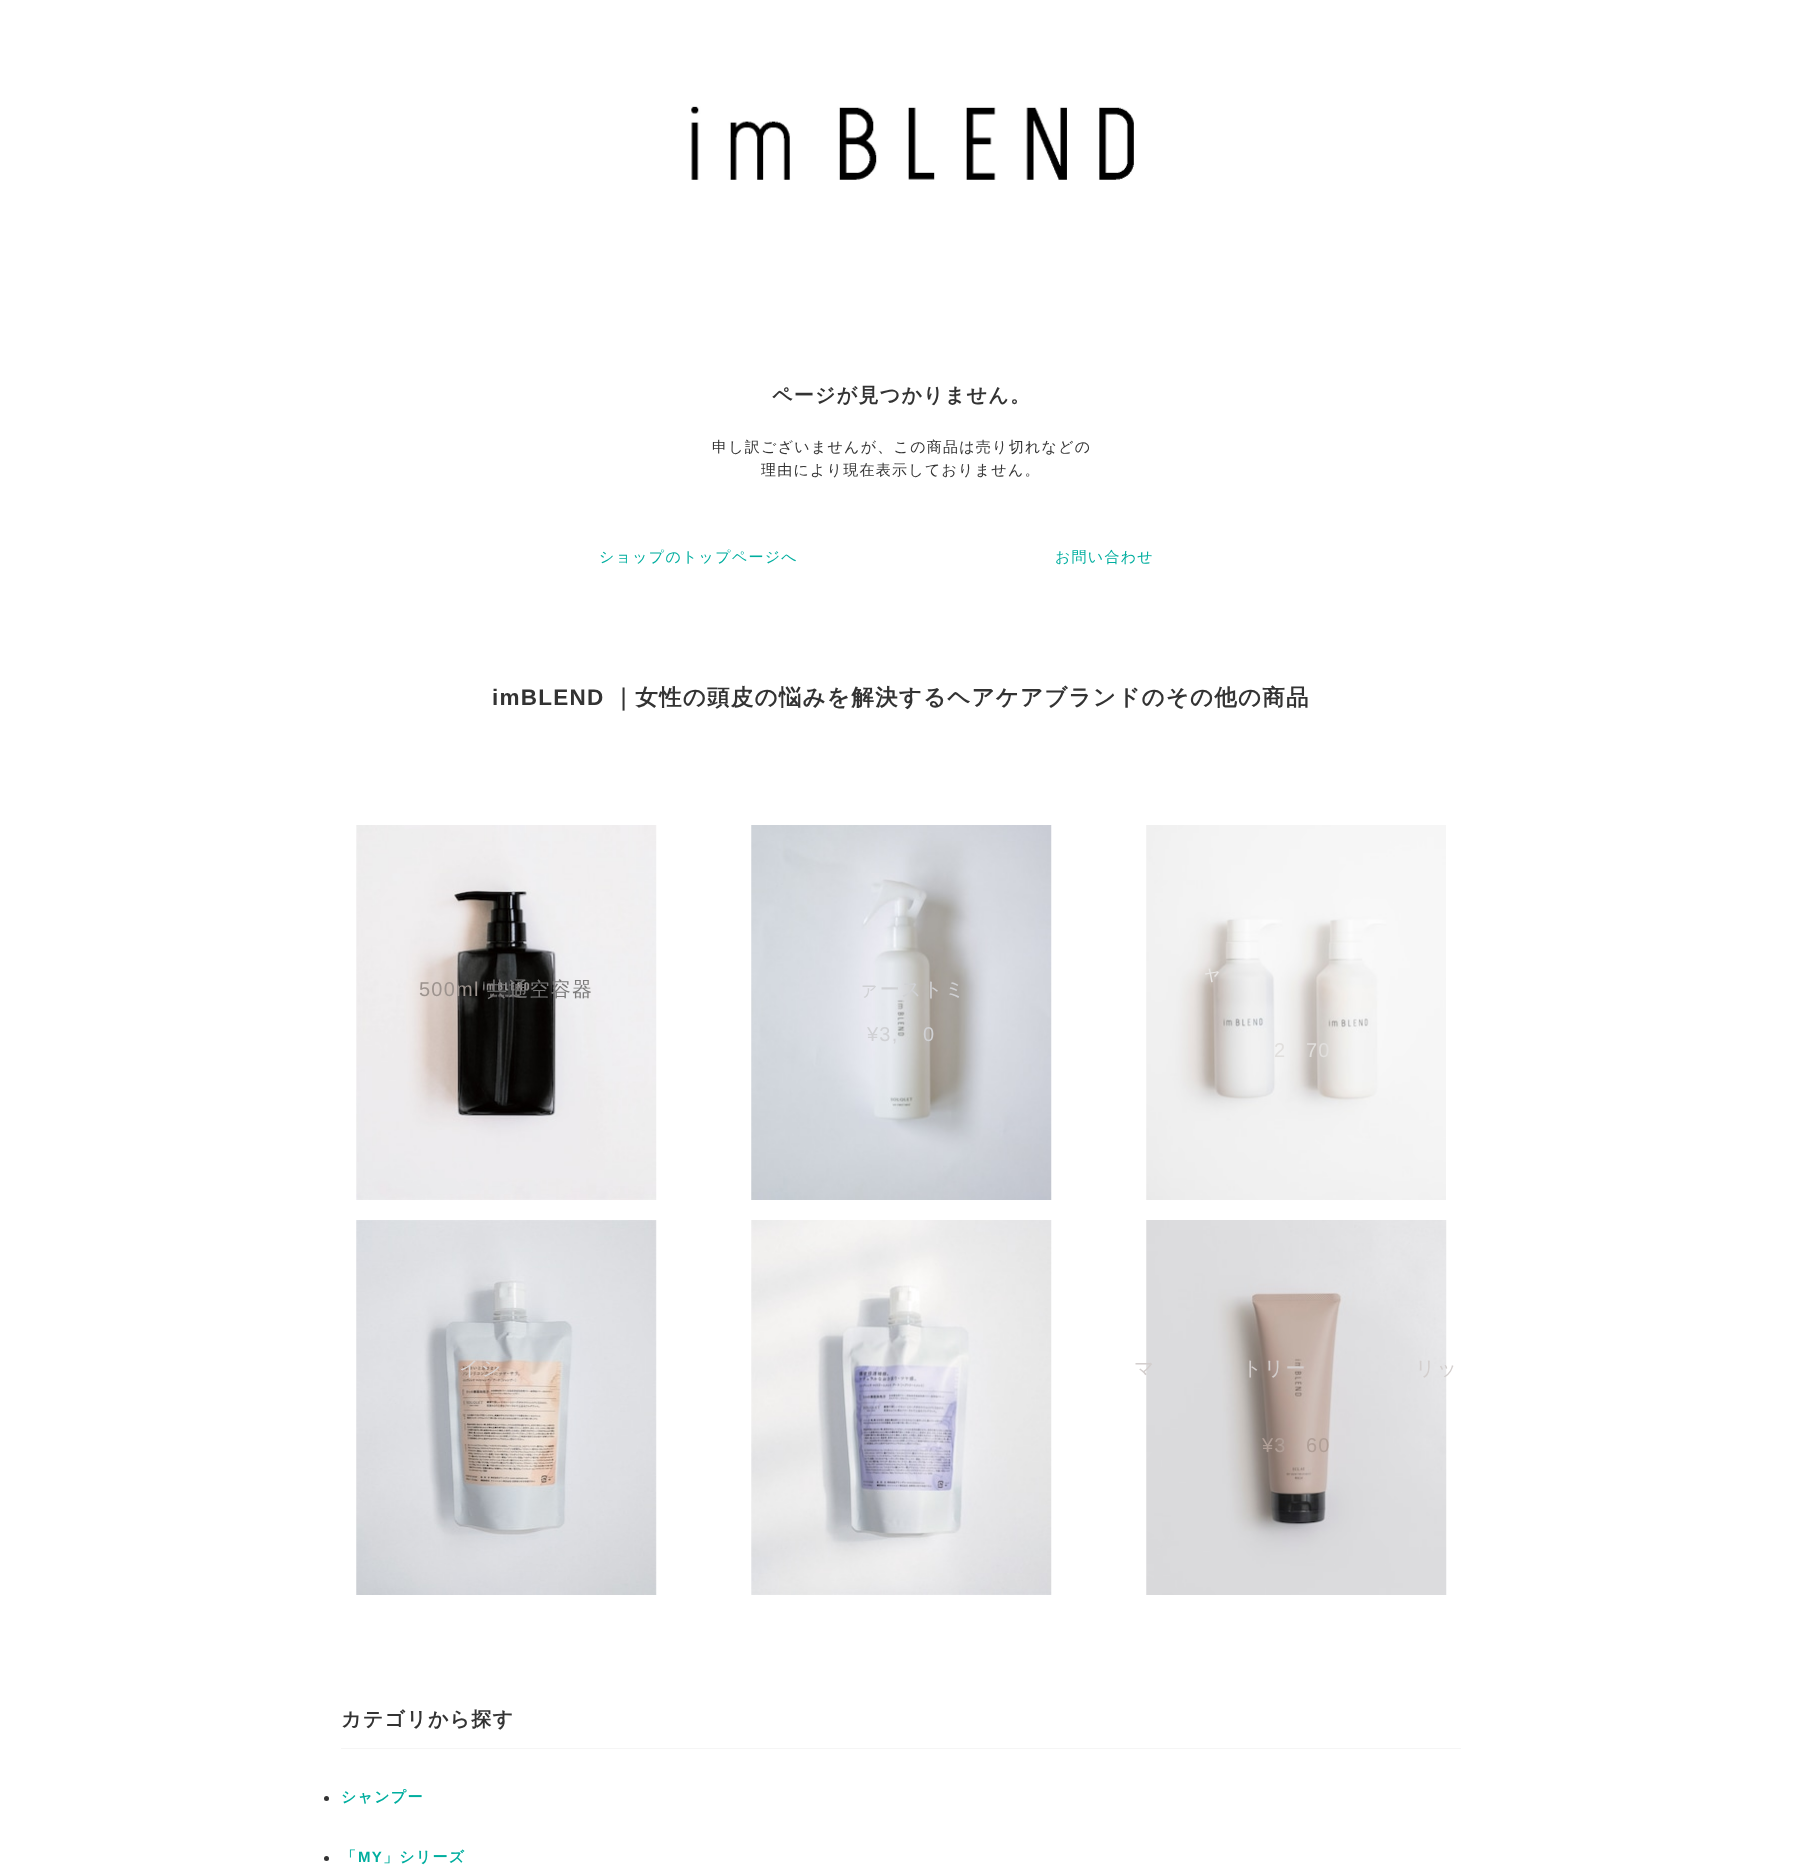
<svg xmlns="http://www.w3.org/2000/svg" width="1802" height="1870">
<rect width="100%" height="100%" fill="#fff"/>
<image x="691" y="106" width="443" height="74" href="media/1.png"/>
<text x="772" y="402" style="font-family:WenQuanYi Zen Hei;font-size:20px;font-weight:bold;letter-spacing:1.25px;fill:#333">ページが見つかりません。</text>
<text x="712" y="452" style="font-family:WenQuanYi Zen Hei;font-size:15px;font-weight:500;letter-spacing:1.25px;fill:#333">申し訳ございませんが、この商品は売り切れなどの</text>
<text x="761" y="475" style="font-family:WenQuanYi Zen Hei;font-size:15px;font-weight:500;letter-spacing:1.25px;fill:#333">理由により現在表示しておりません。</text>
<text x="599" y="562" style="font-family:WenQuanYi Zen Hei;font-size:15px;font-weight:500;letter-spacing:1.25px;fill:#00ae9f">ショップのトップページへ</text>
<text x="1055" y="562" style="font-family:WenQuanYi Zen Hei;font-size:15px;font-weight:500;letter-spacing:1.25px;fill:#00ae9f">お問い合わせ</text>
<text x="492" y="705" style="font-family:Liberation Sans;font-size:22.5px;font-weight:bold;letter-spacing:1.25px;fill:#333">imBLEND</text>
<text x="612" y="705" style="font-family:WenQuanYi Zen Hei;font-size:22.5px;font-weight:bold;letter-spacing:1.25px;fill:#333">｜女性の頭皮の悩みを解決するヘアケアブランドのその他の商品</text>
<image x="356" y="825" width="301" height="375" href="media/2.png"/>
<text x="419" y="996" style="font-family:Liberation Sans;font-size:20px;letter-spacing:1.25px;fill:#9c938e">500ml</text>
<text x="487" y="996" style="font-family:WenQuanYi Zen Hei;font-size:20px;font-weight:500;letter-spacing:1.25px;fill:#7a7979">共通空容器</text>
<image x="751" y="825" width="301" height="375" href="media/3.png"/>
<text x="858" y="996" style="font-family:WenQuanYi Zen Hei;font-size:20px;font-weight:500;letter-spacing:1.25px;fill:#d0d1d4">ァーストミ</text>
<text x="867" y="1041" style="font-family:Liberation Sans;font-size:20px;letter-spacing:1.25px;fill:#d0d1d4">¥3,</text>
<text x="923" y="1041" style="font-family:Liberation Sans;font-size:20px;letter-spacing:1.25px;fill:#d0d1d4">0</text>
<image x="1146" y="825" width="300" height="375" href="media/4.png"/>
<text x="1202" y="980" style="font-family:WenQuanYi Zen Hei;font-size:20px;font-weight:500;letter-spacing:1.25px;fill:#eae8e7">ャ</text>
<text x="1274" y="1057" style="font-family:Liberation Sans;font-size:20px;letter-spacing:1.25px;fill:#e1dfdd">2</text>
<text x="1306" y="1057" style="font-family:Liberation Sans;font-size:20px;letter-spacing:1.25px;fill:#e1dfdd">70</text>
<image x="356" y="1220" width="301" height="375" href="media/5.png"/>
<text x="459" y="1375" style="font-family:WenQuanYi Zen Hei;font-size:20px;font-weight:500;letter-spacing:1.25px;fill:#dad5d4">イシ</text>
<image x="751" y="1220" width="301" height="375" href="media/6.png"/>
<image x="1146" y="1220" width="301" height="375" href="media/7.png"/>
<text x="1134" y="1375" style="font-family:WenQuanYi Zen Hei;font-size:20px;font-weight:500;letter-spacing:1.25px;fill:#d3cecd">マ</text>
<text x="1242" y="1375" style="font-family:WenQuanYi Zen Hei;font-size:20px;font-weight:500;letter-spacing:1.25px;fill:#d3cecd">トリー</text>
<text x="1415" y="1375" style="font-family:WenQuanYi Zen Hei;font-size:20px;font-weight:500;letter-spacing:1.25px;fill:#d3cecd">リッ</text>
<text x="1262" y="1452" style="font-family:Liberation Sans;font-size:20px;letter-spacing:1.25px;fill:#b09f97">¥3</text>
<text x="1306" y="1452" style="font-family:Liberation Sans;font-size:20px;letter-spacing:1.25px;fill:#b09f97">60</text>
<rect x="341" y="1748" width="1120" height="1" fill="#f5f5f5"/>
<text x="341" y="1726" style="font-family:WenQuanYi Zen Hei;font-size:20px;font-weight:bold;letter-spacing:1.25px;fill:#333">カテゴリから探す</text>
<circle cx="326.5" cy="1798.5" r="2.5" fill="#333"/>
<text x="341" y="1802" style="font-family:WenQuanYi Zen Hei;font-size:15px;font-weight:bold;letter-spacing:1.25px;fill:#00ae9f">シャンプー</text>
<circle cx="326.5" cy="1858.5" r="2.5" fill="#333"/>
<text x="341" y="1862" style="font-family:WenQuanYi Zen Hei;font-size:15px;font-weight:bold;letter-spacing:1.25px;fill:#00ae9f">「</text>
<text x="358" y="1862" style="font-family:Liberation Sans;font-size:15px;font-weight:bold;letter-spacing:1.25px;fill:#00ae9f">MY</text>
<text x="383" y="1862" style="font-family:WenQuanYi Zen Hei;font-size:15px;font-weight:bold;letter-spacing:1.25px;fill:#00ae9f">」シリーズ</text>
</svg>
